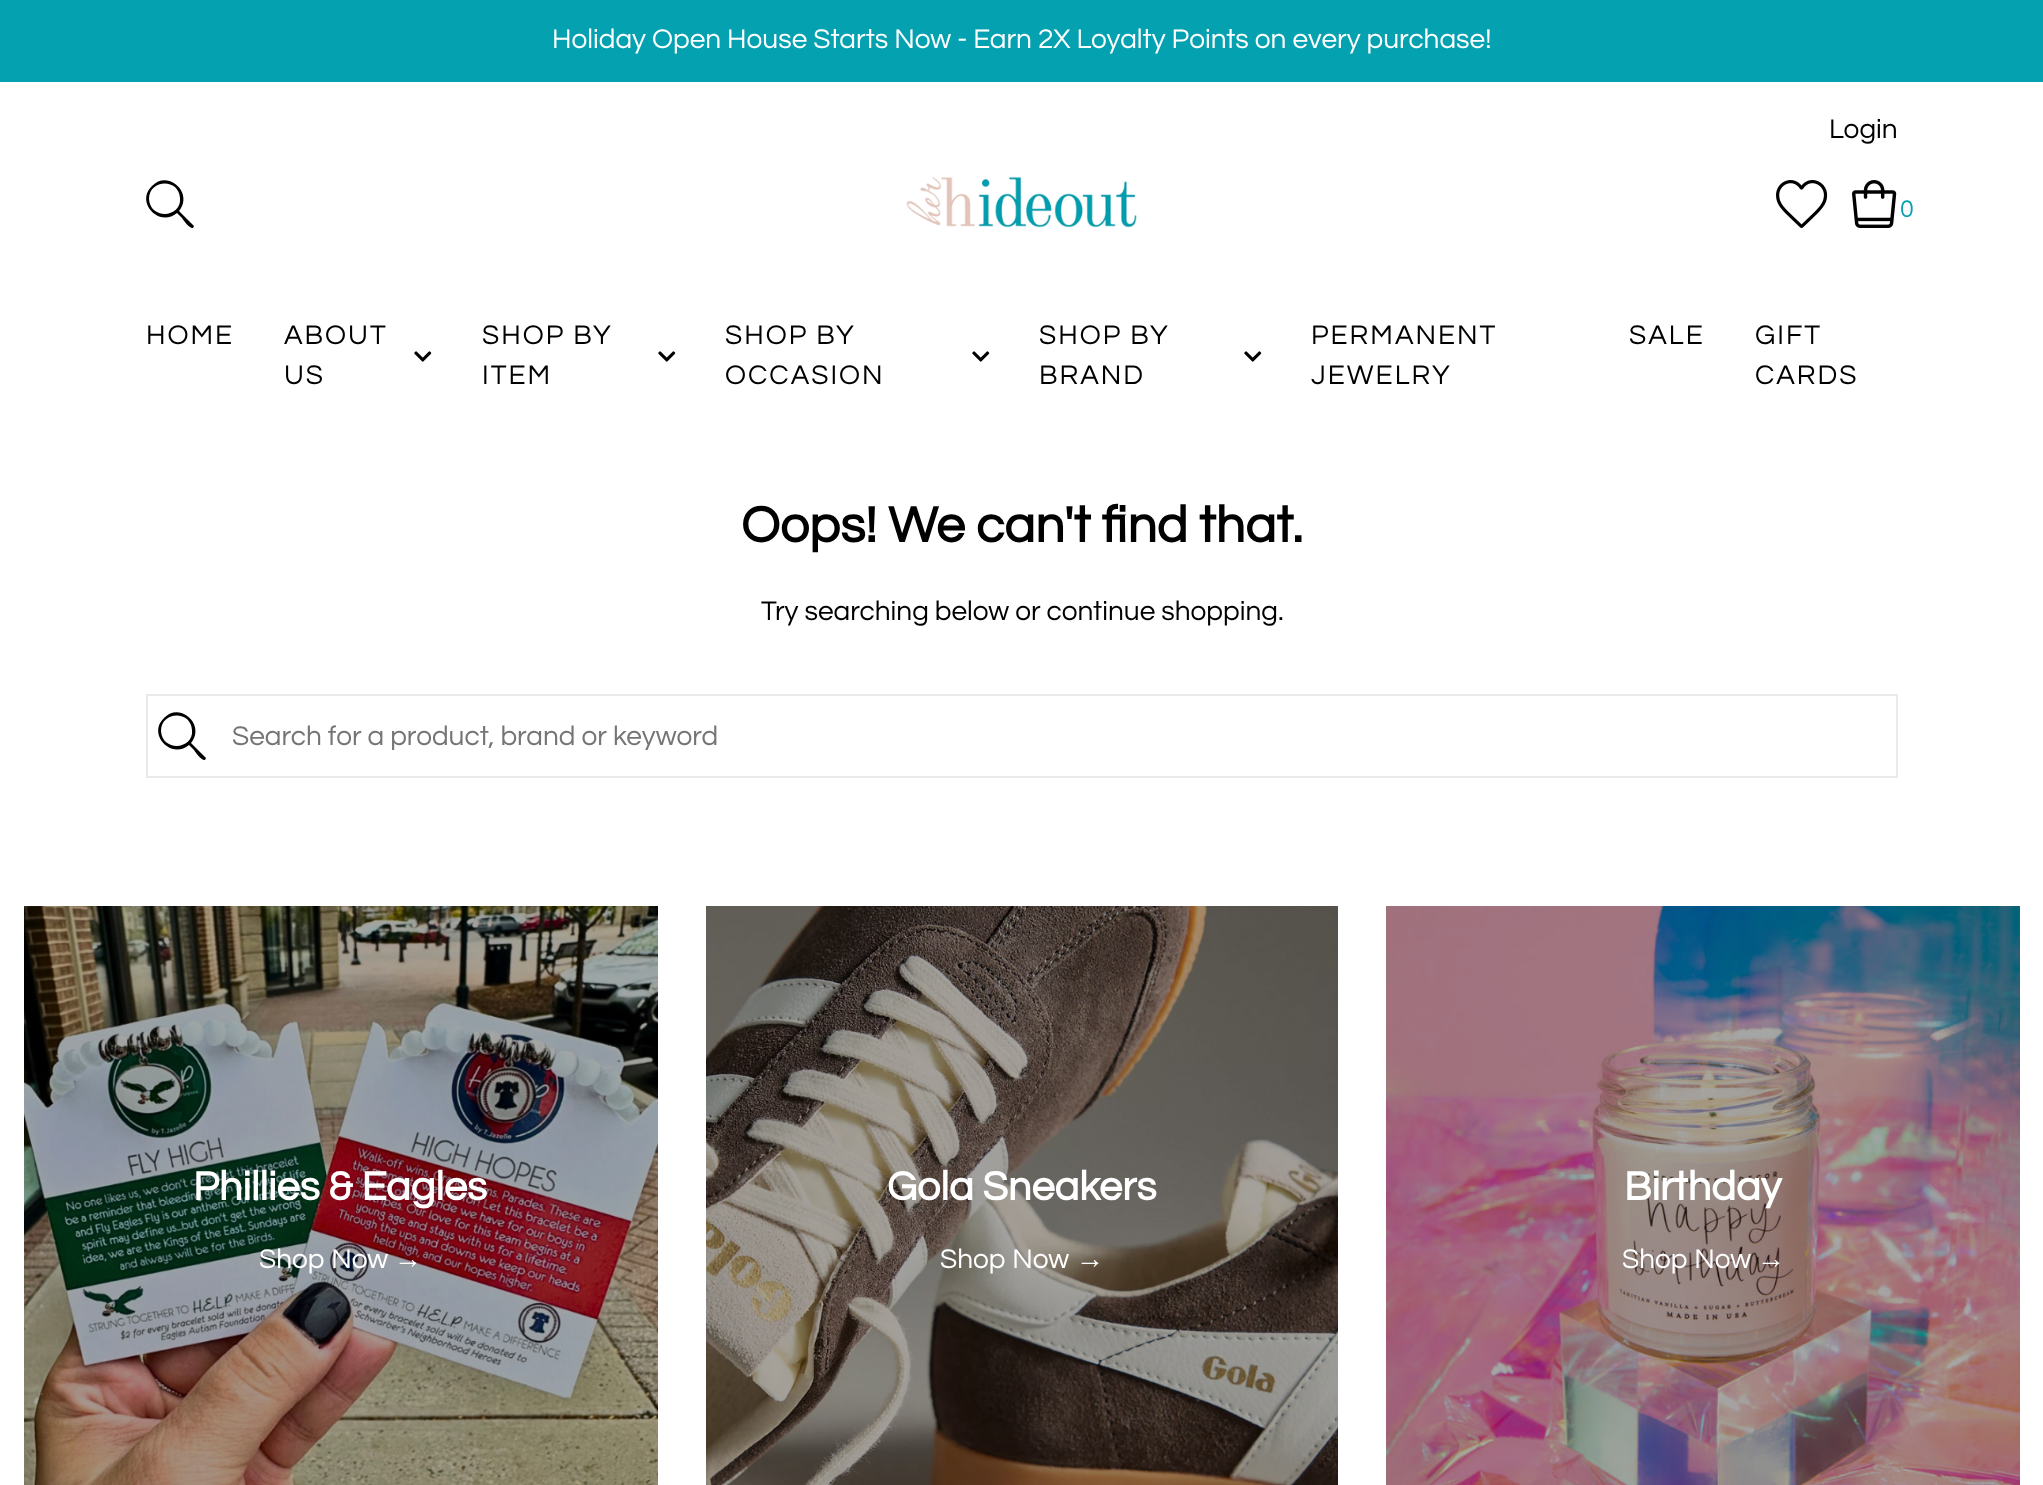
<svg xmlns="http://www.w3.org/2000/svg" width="2043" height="1485">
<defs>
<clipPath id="clip1"><rect x="232" y="722" width="1614" height="28"/></clipPath>
</defs>
<rect width="100%" height="100%" fill="#fff"/>
<rect width="2043" height="82" fill="#04a1b1"/>
<text x="552" y="48" style="font-family:Questrial;font-size:28px;fill:#fff">Holiday Open House Starts Now - Earn 2X Loyalty Points on every purchase!</text>
<text x="1829" y="138" style="font-family:Questrial;font-size:28px;fill:#000">Login</text>
<path d="M193 225l-14-14c15-18-11-42-27-25c-17 16 7 42 25 27l5 5c1 2 8 11 11 10l1-2zm-44-26c0-20 30-21 31-1c2 20-30 22-31 1z" fill="#000"/>
<image x="906" y="176" width="231" height="52" href="media/1.png"/>
<image x="1776" y="180" width="52" height="48" href="media/2.png"/>
<image x="1852" y="180" width="45" height="48" href="media/3.png"/>
<text x="1900" y="217" style="font-family:Questrial;font-size:25px;fill:#04a1b1">0</text>
<text x="146" y="344" style="font-family:Questrial;font-size:28px;letter-spacing:2px;fill:#000">HOME</text>
<text x="284" y="344" style="font-family:Questrial;font-size:28px;letter-spacing:2px;fill:#000">ABOUT</text>
<text x="284" y="384" style="font-family:Questrial;font-size:28px;letter-spacing:2px;fill:#000">US</text>
<image x="414" y="351" width="18" height="11" href="media/4.png"/>
<text x="482" y="344" style="font-family:Questrial;font-size:28px;letter-spacing:2px;fill:#000">SHOP BY</text>
<text x="482" y="384" style="font-family:Questrial;font-size:28px;letter-spacing:2px;fill:#000">ITEM</text>
<image x="658" y="351" width="18" height="11" href="media/4.png"/>
<text x="725" y="344" style="font-family:Questrial;font-size:28px;letter-spacing:2px;fill:#000">SHOP BY</text>
<text x="725" y="384" style="font-family:Questrial;font-size:28px;letter-spacing:2px;fill:#000">OCCASION</text>
<image x="972" y="351" width="18" height="11" href="media/4.png"/>
<text x="1039" y="344" style="font-family:Questrial;font-size:28px;letter-spacing:2px;fill:#000">SHOP BY</text>
<text x="1039" y="384" style="font-family:Questrial;font-size:28px;letter-spacing:2px;fill:#000">BRAND</text>
<image x="1244" y="351" width="18" height="11" href="media/4.png"/>
<text x="1311" y="344" style="font-family:Questrial;font-size:28px;letter-spacing:2px;fill:#000">PERMANENT</text>
<text x="1311" y="384" style="font-family:Questrial;font-size:28px;letter-spacing:2px;fill:#000">JEWELRY</text>
<text x="1629" y="344" style="font-family:Questrial;font-size:28px;letter-spacing:2px;fill:#000">SALE</text>
<text x="1755" y="344" style="font-family:Questrial;font-size:28px;letter-spacing:2px;fill:#000">GIFT</text>
<text x="1755" y="384" style="font-family:Questrial;font-size:28px;letter-spacing:2px;fill:#000">CARDS</text>
<text x="741" y="542" style="font-family:Questrial;font-size:52px;font-weight:bold;fill:#000">Oops! We can't find that.</text>
<text x="761" y="620" style="font-family:Questrial;font-size:28px;fill:#000">Try searching below or continue shopping.</text>
<path d="M205 757l-14-14c15-18-11-42-27-25c-17 16 7 42 25 27l5 5c1 2 8 11 11 10l1-2zm-44-26c0-20 30-21 31-1c2 20-30 22-31 1z" fill="#000"/>
<rect x="147" y="695" width="1750" height="82" fill="none" stroke="#eaeaea" stroke-width="2"/>
<g clip-path="url(#clip1)">
<text x="232" y="745" style="font-family:Questrial;font-size:28px;fill:#757575">Search for a product, brand or keyword</text>
</g>
<image x="24" y="906" width="634" height="579" href="media/5.png"/>
<text x="193" y="1200" style="font-family:Questrial;font-size:41.5px;font-weight:bold;fill:#fff">Phillies &amp; Eagles</text>
<text x="259" y="1268" style="font-family:Questrial;font-size:28px;fill:#fff">Shop Now</text>
<text x="394" y="1268" style="font-family:Liberation Sans;font-size:28px;fill:#fff">→</text>
<image x="706" y="906" width="632" height="579" href="media/6.png"/>
<text x="887" y="1200" style="font-family:Questrial;font-size:41.5px;font-weight:bold;fill:#fff">Gola Sneakers</text>
<text x="940" y="1268" style="font-family:Questrial;font-size:28px;fill:#fff">Shop Now</text>
<text x="1076" y="1268" style="font-family:Liberation Sans;font-size:28px;fill:#fff">→</text>
<image x="1386" y="906" width="634" height="579" href="media/7.png"/>
<text x="1624" y="1200" style="font-family:Questrial;font-size:41.5px;font-weight:bold;fill:#fff">Birthday</text>
<text x="1622" y="1268" style="font-family:Questrial;font-size:28px;fill:#fff">Shop Now</text>
<text x="1757" y="1268" style="font-family:Liberation Sans;font-size:28px;fill:#fff">→</text>
</svg>
